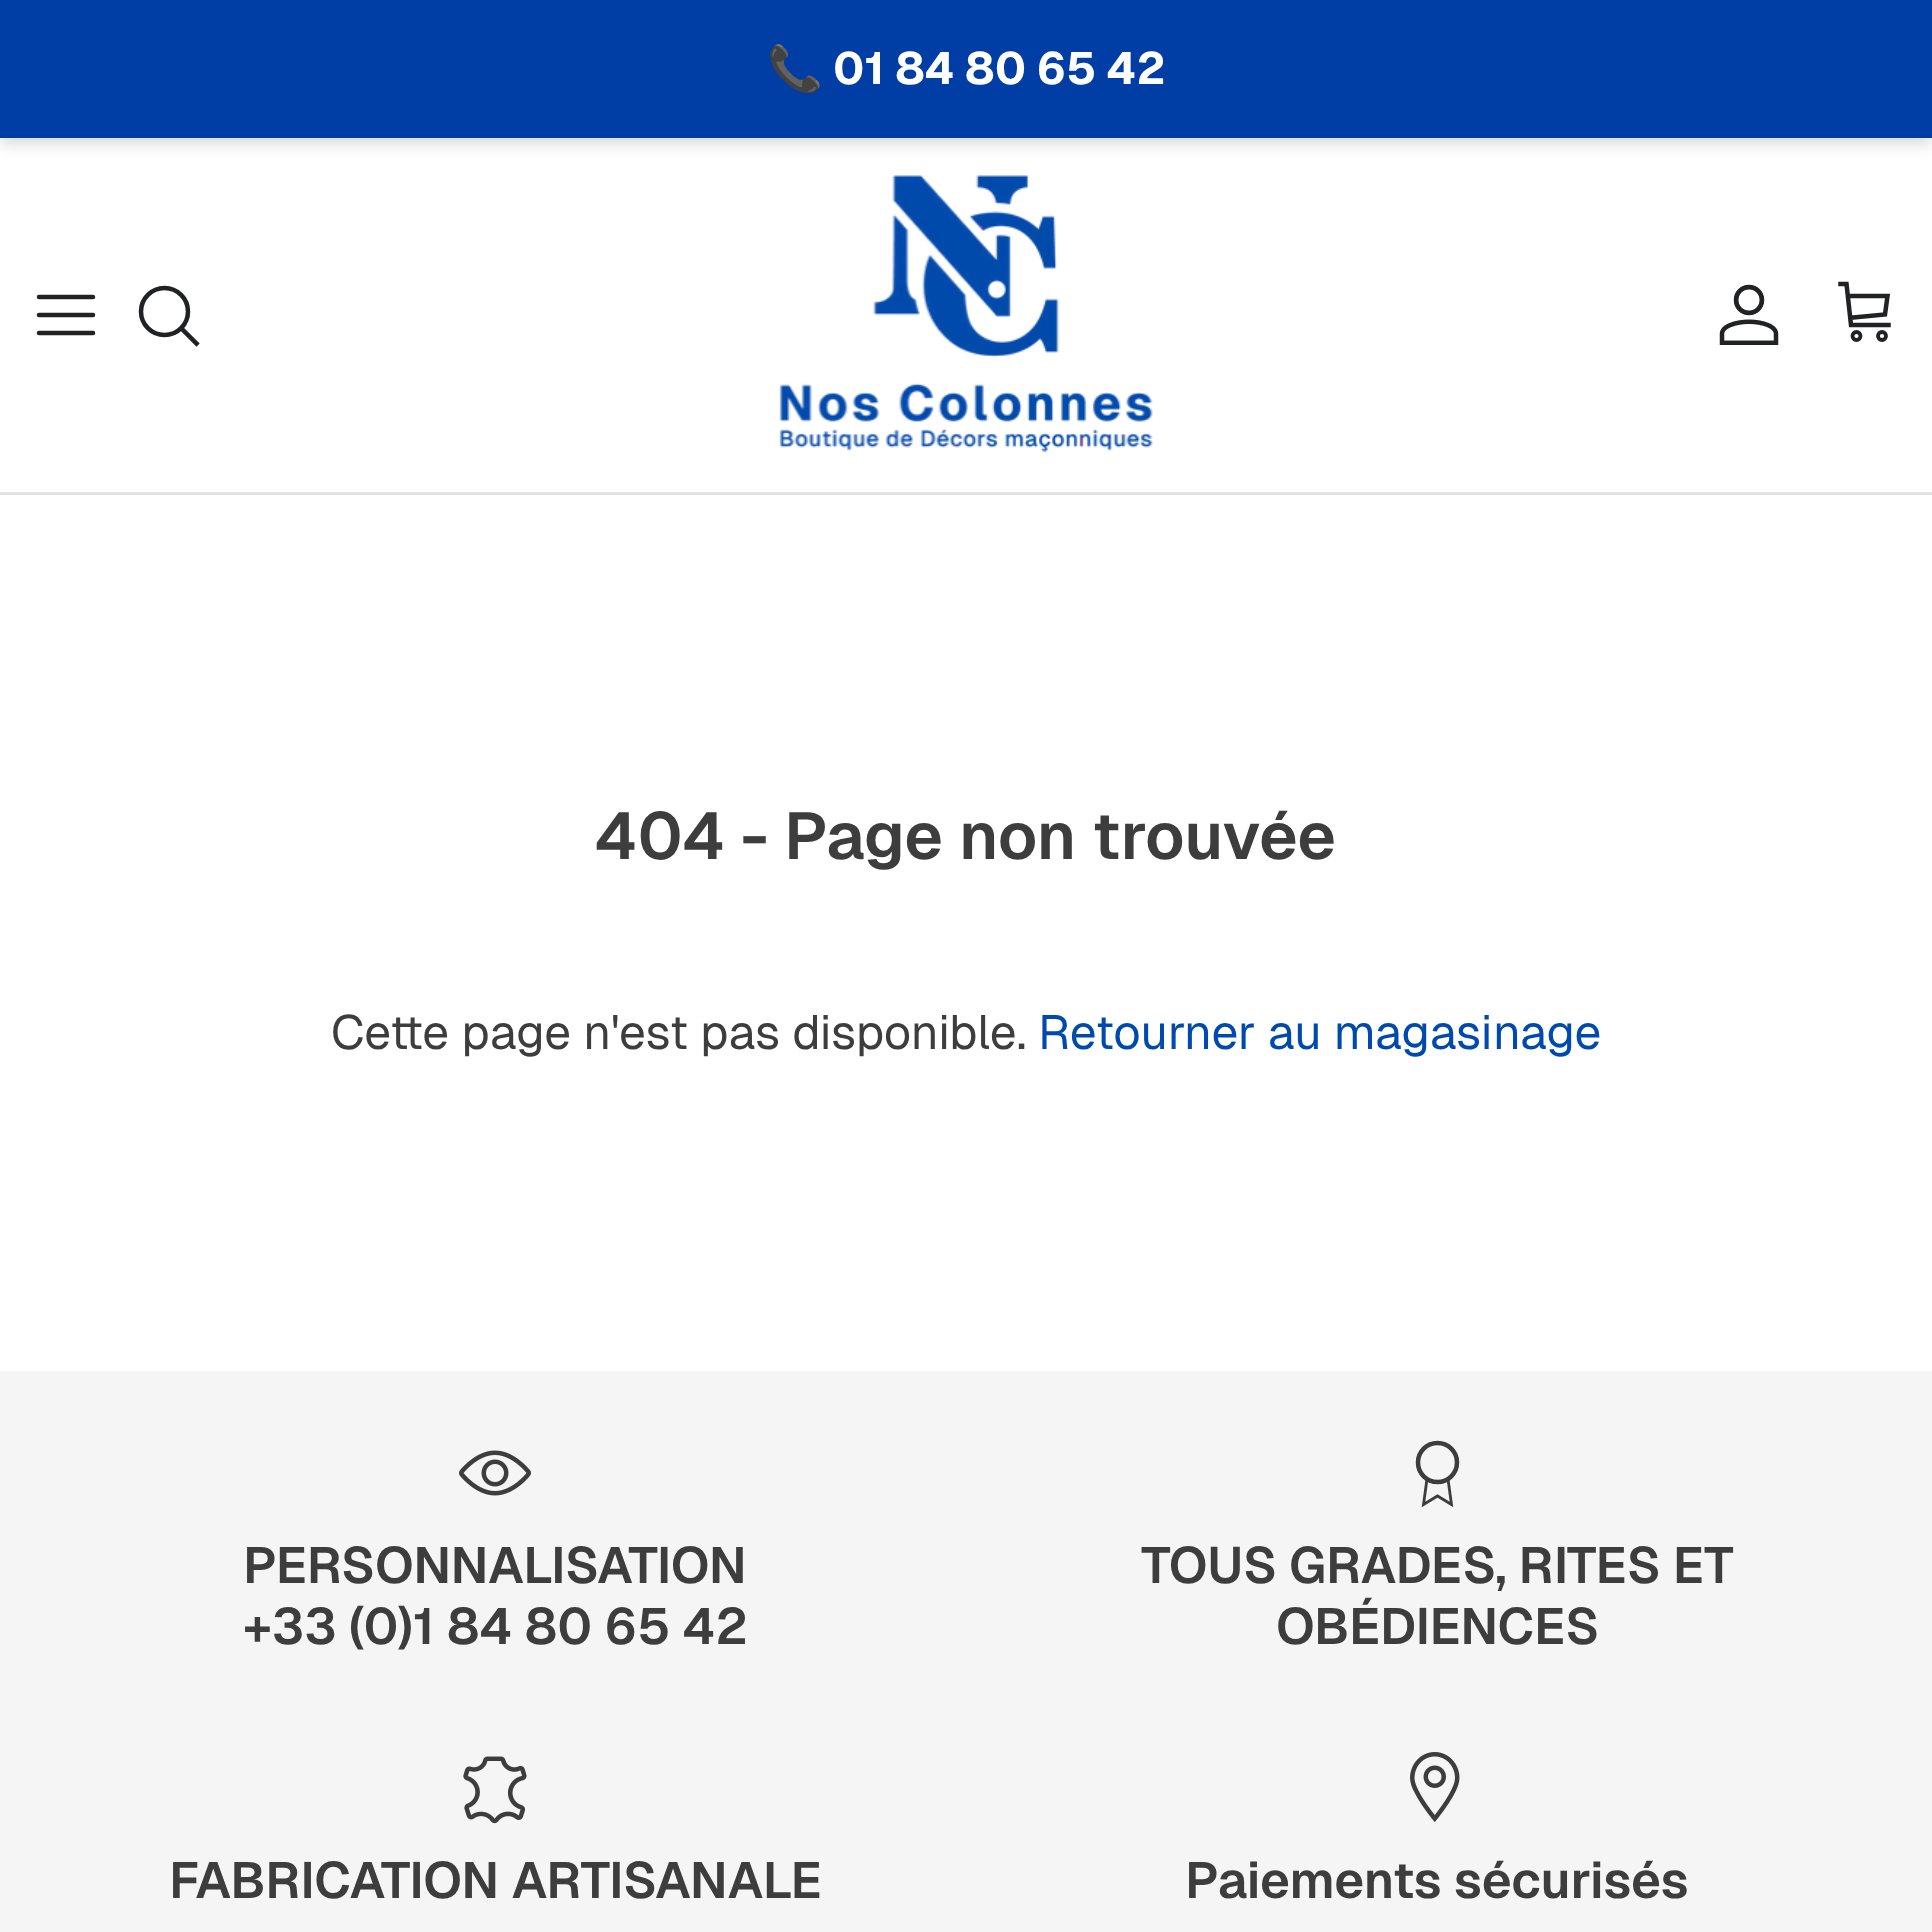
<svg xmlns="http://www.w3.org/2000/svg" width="1932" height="1932">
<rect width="100%" height="100%" fill="#fff"/>
<rect y="6" width="1932" height="138" fill="#00000026" filter="blur(7.5px)"/>
<rect width="1932" height="138" fill="#003da5"/>
<text x="767" y="84" style="font-family:Noto Color Emoji;font-size:45px;font-weight:bold;fill:#fff">📞</text>
<text x="833" y="84" style="font-family:Geist;font-size:45px;font-weight:bold;fill:#fff">01 84 80 65 42</text>
<rect y="492" width="1932" height="3" fill="#e2e2e2"/>
<path d="M39 315h54m-54-18h54m-54 36h54" fill="none" stroke="#202223" stroke-width="4.5" stroke-linecap="round" stroke-linejoin="round"/>
<circle cx="164.5" cy="311.5" r="23.5" fill="none" stroke="#202223" stroke-width="4.5"/>
<path d="M183 330l13.5 13.5" fill="none" stroke="#202223" stroke-width="4.5" stroke-linecap="square"/>
<image x="779" y="175" width="374" height="278" href="media/1.png"/>
<image x="1719" y="284" width="60" height="61" href="media/2.png"/>
<path d="M1840.5 284h6l4.5 41h37.5m-40-29h39l-2.5 18.5l-32 3" fill="none" stroke="#202223" stroke-width="4.5" stroke-linecap="square"/>
<circle cx="1856.5" cy="336" r="4" fill="none" stroke="#202223" stroke-width="3.8"/>
<circle cx="1882" cy="336" r="4" fill="none" stroke="#202223" stroke-width="3.8"/>
<text x="595" y="859" style="font-family:Geist;font-size:66px;font-weight:600;fill:#3d3d3d">404 - Page non trouvée</text>
<text x="331" y="1049" style="font-family:Geist;font-size:48px;fill:#3d3d3d">Cette page n'est pas disponible.</text>
<text x="1038" y="1049" style="font-family:Geist;font-size:48px;fill:#004aad">Retourner au magasinage</text>
<rect y="1371" width="1932" height="561" fill="#f5f5f5"/>
<image x="459" y="1450" width="72" height="46" href="media/3.png"/>
<text x="243" y="1583" style="font-family:Geist;font-size:50.9px;font-weight:600;fill:#3d3d3d">PERSONNALISATION</text>
<text x="243" y="1644" style="font-family:Geist;font-size:50.9px;font-weight:600;fill:#3d3d3d">+33 (0)1 84 80 65 42</text>
<circle cx="1437.5" cy="1462.5" r="19.5" fill="none" stroke="#3d3d3d" stroke-width="4.5"/>
<path d="M1427 1479l-3.5 25.5l14-8.5l14 8.5l-3.5-25.5" fill="none" stroke="#3d3d3d" stroke-width="2.8"/>
<text x="1141" y="1583" style="font-family:Geist;font-size:50.9px;font-weight:600;fill:#3d3d3d">TOUS GRADES, RITES ET</text>
<text x="1276" y="1644" style="font-family:Geist;font-size:50.9px;font-weight:600;fill:#3d3d3d">OBÉDIENCES</text>
<image x="463" y="1756" width="64" height="68" href="media/4.png"/>
<text x="169" y="1898" style="font-family:Geist;font-size:50.9px;font-weight:600;fill:#3d3d3d">FABRICATION ARTISANALE</text>
<image x="1410" y="1752" width="50" height="70" href="media/5.png"/>
<text x="1185" y="1898" style="font-family:Geist;font-size:50.9px;font-weight:600;fill:#3d3d3d">Paiements sécurisés</text>
</svg>
